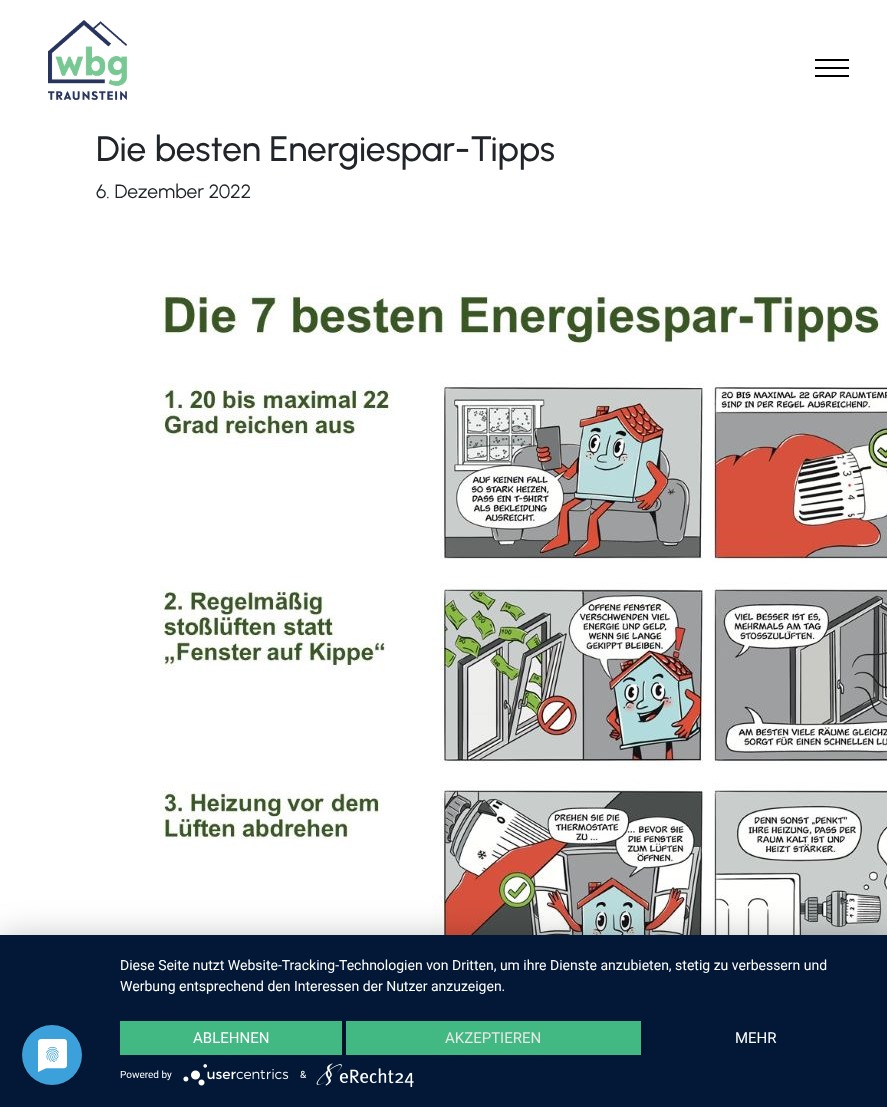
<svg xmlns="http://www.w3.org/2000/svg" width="887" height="1107">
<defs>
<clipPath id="clip1"><rect x="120" y="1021" width="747" height="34"/></clipPath>
</defs>
<rect width="100%" height="100%" fill="#fff"/>
<image x="48" y="20" width="79" height="80" href="media/1.png"/>
<rect x="815" y="59" width="34" height="2" fill="#000"/>
<rect x="815" y="67" width="34" height="2" fill="#000"/>
<rect x="815" y="75" width="34" height="2" fill="#000"/>
<text x="96" y="161" style="font-family:Urbanist;font-size:35.25px;font-weight:500;fill:#212529">Die besten Energiespar-Tipps</text>
<text x="96" y="198" style="font-family:Urbanist;font-size:19.25px;fill:#212529">6. Dezember 2022</text>
<image x="160" y="287" width="727" height="648" href="media/2.png"/>
<rect y="941" width="887" height="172" fill="#0000004d" filter="blur(18px)"/>
<rect y="935" width="887" height="172" fill="#021836"/>
<image x="21" y="1024" width="62" height="62" href="media/3.png"/>
<text x="120" y="970" style="font-family:Roboto;font-size:14px;fill:#fff">Diese Seite nutzt Website-Tracking-Technologien von Dritten, um ihre Dienste anzubieten, stetig zu verbessern und</text>
<text x="120" y="991" style="font-family:Roboto;font-size:14px;fill:#fff">Werbung entsprechend den Interessen der Nutzer anzuzeigen.</text>
<g clip-path="url(#clip1)">
<rect x="120" y="1022" width="222" height="34" fill="#00000066" filter="blur(2px)"/>
</g>
<rect x="120" y="1021" width="222" height="34" fill="#42b983"/>
<text x="193" y="1043" style="font-family:Roboto;font-size:15px;fill:#fff">ABLEHNEN</text>
<g clip-path="url(#clip1)">
<rect x="346" y="1022" width="295" height="34" fill="#00000066" filter="blur(2px)"/>
</g>
<rect x="346" y="1021" width="295" height="34" fill="#42b983"/>
<text x="445" y="1043" style="font-family:Roboto;font-size:15px;fill:#e6e6e6">AKZEPTIEREN</text>
<text x="735" y="1043" style="font-family:Roboto;font-size:15px;fill:#fff">MEHR</text>
<text x="120" y="1078" style="font-family:Roboto;font-size:10px;fill:#fff">Powered by</text>
<image x="183" y="1064" width="106" height="22" href="media/4.png"/>
<text x="300" y="1078" style="font-family:Roboto;font-size:10px;fill:#fff">&amp;</text>
<image x="316" y="1063" width="98" height="24" href="media/5.png"/>
</svg>
